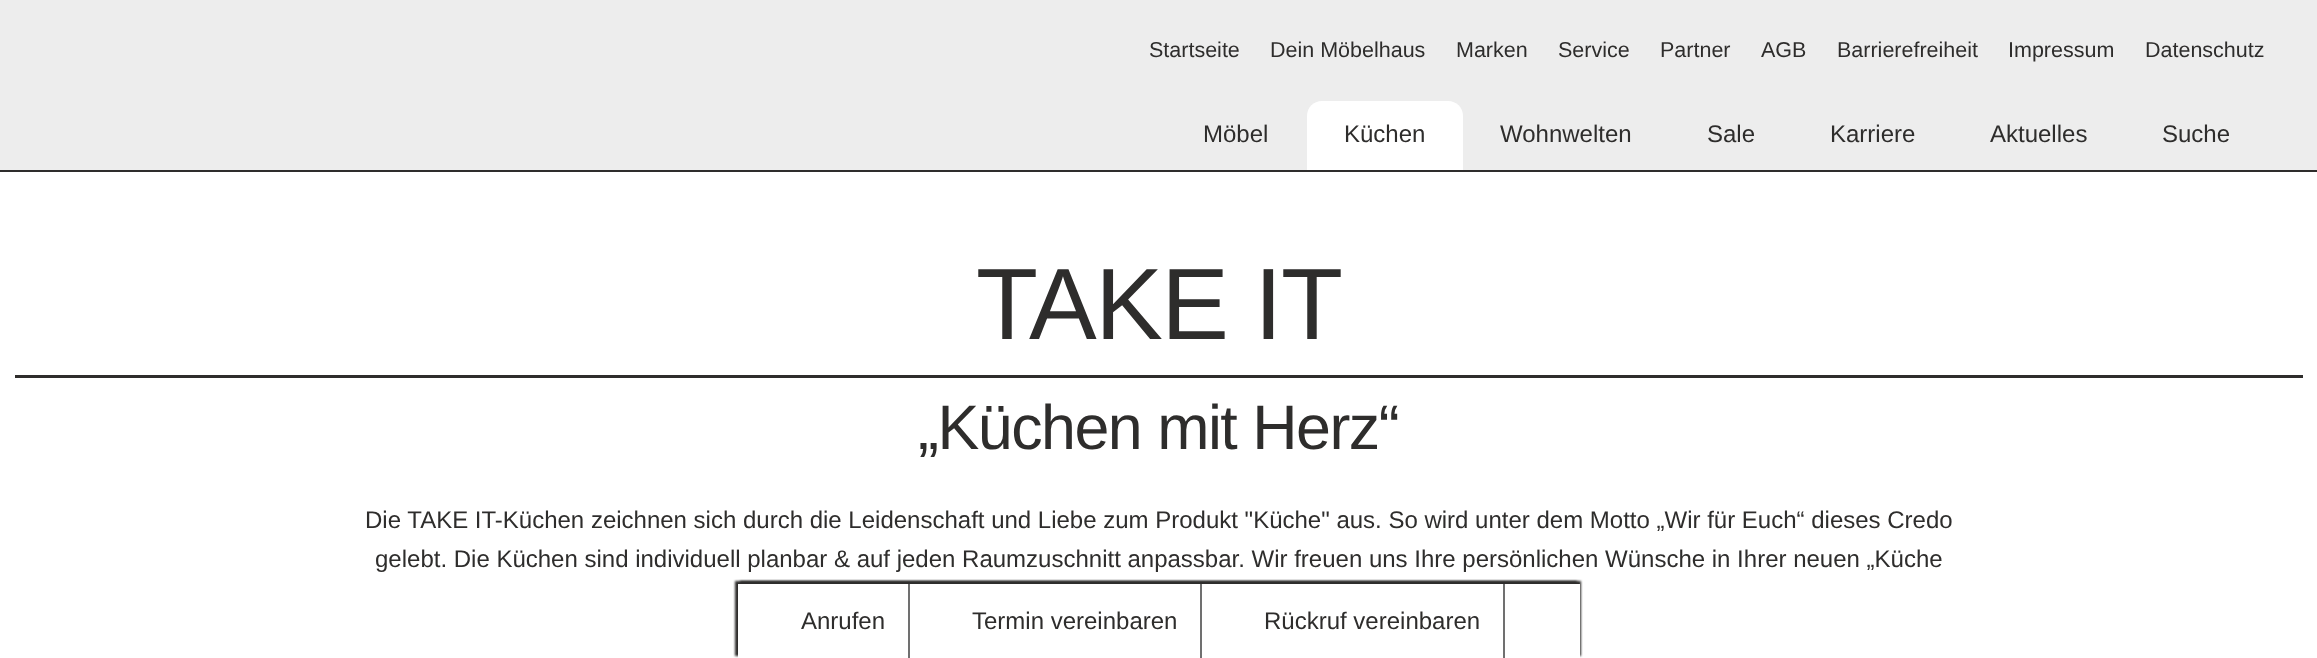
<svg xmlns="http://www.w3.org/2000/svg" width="2317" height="658">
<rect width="100%" height="100%" fill="#fff"/>
<rect width="2317" height="170" fill="#ededed"/>
<rect y="170" width="2317" height="2" fill="#2e2d2c"/>
<text x="1149" y="57" style="font-family:Liberation Sans;font-size:21.5px;fill:#2e2d2c">Startseite</text>
<text x="1270" y="57" style="font-family:Liberation Sans;font-size:21.5px;fill:#2e2d2c">Dein Möbelhaus</text>
<text x="1456" y="57" style="font-family:Liberation Sans;font-size:21.5px;fill:#2e2d2c">Marken</text>
<text x="1558" y="57" style="font-family:Liberation Sans;font-size:21.5px;fill:#2e2d2c">Service</text>
<text x="1660" y="57" style="font-family:Liberation Sans;font-size:21.5px;fill:#2e2d2c">Partner</text>
<text x="1761" y="57" style="font-family:Liberation Sans;font-size:21.5px;fill:#2e2d2c">AGB</text>
<text x="1837" y="57" style="font-family:Liberation Sans;font-size:21.5px;fill:#2e2d2c">Barrierefreiheit</text>
<text x="2008" y="57" style="font-family:Liberation Sans;font-size:21.5px;fill:#2e2d2c">Impressum</text>
<text x="2145" y="57" style="font-family:Liberation Sans;font-size:21.5px;fill:#2e2d2c">Datenschutz</text>
<text x="1203" y="142" style="font-family:Liberation Sans;font-size:24px;fill:#2e2d2c">Möbel</text>
<path d="M1322 101h126c8.5 0 15 6.5 15 15v54h-156v-54c0-8.5 6.5-15 15-15z" fill="#fff"/>
<text x="1344" y="142" style="font-family:Liberation Sans;font-size:24px;fill:#2e2d2c">Küchen</text>
<text x="1500" y="142" style="font-family:Liberation Sans;font-size:24px;fill:#2e2d2c">Wohnwelten</text>
<text x="1707" y="142" style="font-family:Liberation Sans;font-size:24px;fill:#2e2d2c">Sale</text>
<text x="1830" y="142" style="font-family:Liberation Sans;font-size:24px;fill:#2e2d2c">Karriere</text>
<text x="1990" y="142" style="font-family:Liberation Sans;font-size:24px;fill:#2e2d2c">Aktuelles</text>
<text x="2162" y="142" style="font-family:Liberation Sans;font-size:24px;fill:#2e2d2c">Suche</text>
<rect x="15" y="375" width="2288" height="3" fill="#2e2d2c"/>
<text x="976" y="339" style="font-family:Liberation Sans;font-size:101.5px;letter-spacing:-1.5px;fill:#2e2d2c">TAKE IT</text>
<text x="918" y="449" style="font-family:Liberation Sans;font-size:62.75px;letter-spacing:-1.5px;fill:#2e2d2c">„Küchen mit Herz“</text>
<text x="365" y="528" style="font-family:Liberation Sans;font-size:24px;fill:#2e2d2c">Die TAKE IT-Küchen zeichnen sich durch die Leidenschaft und Liebe zum Produkt "Küche" aus. So wird unter dem Motto „Wir für Euch“ dieses Credo</text>
<text x="375" y="567" style="font-family:Liberation Sans;font-size:24px;fill:#2e2d2c">gelebt. Die Küchen sind individuell planbar &amp; auf jeden Raumzuschnitt anpassbar. Wir freuen uns Ihre persönlichen Wünsche in Ihrer neuen „Küche</text>
<rect x="740" y="581" width="841" height="75" fill="#2e2d2c" filter="blur(1px)"/>
<rect x="735" y="581" width="842" height="75" fill="#2e2d2c" filter="blur(1px)"/>
<rect x="738" y="584" width="842" height="74" fill="#fff"/>
<text x="801" y="629" style="font-family:Liberation Sans;font-size:24px;fill:#2e2d2c">Anrufen</text>
<rect x="908" y="584" width="2" height="74" fill="#707070"/>
<text x="972" y="629" style="font-family:Liberation Sans;font-size:24px;fill:#2e2d2c">Termin vereinbaren</text>
<rect x="1200" y="584" width="2" height="74" fill="#707070"/>
<text x="1264" y="629" style="font-family:Liberation Sans;font-size:24px;fill:#2e2d2c">Rückruf vereinbaren</text>
<rect x="1503" y="584" width="2" height="74" fill="#707070"/>
</svg>
